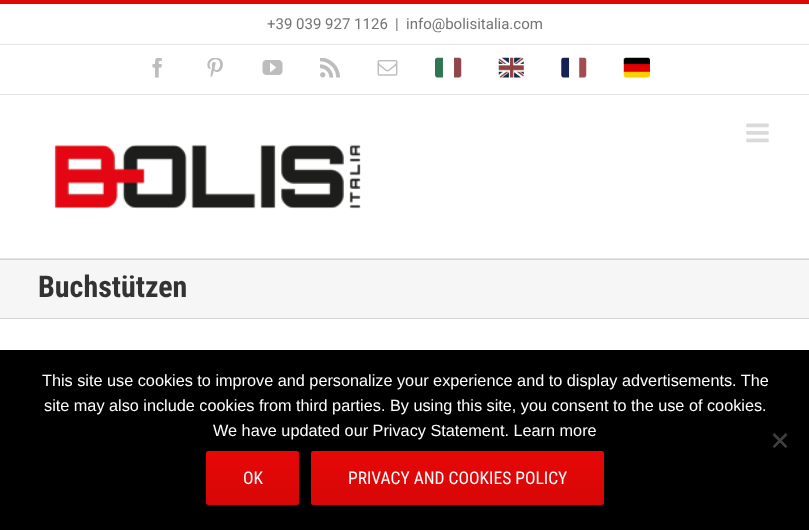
<svg xmlns="http://www.w3.org/2000/svg" width="809" height="530">
<defs>
<linearGradient id="g1" gradientUnits="userSpaceOnUse" x1="253" y1="505" x2="253" y2="451"><stop offset="0" stop-color="#d60707"/><stop offset="1" stop-color="#e80707"/></linearGradient>
<linearGradient id="g2" gradientUnits="userSpaceOnUse" x1="458" y1="505" x2="458" y2="451"><stop offset="0" stop-color="#d60707"/><stop offset="1" stop-color="#e80707"/></linearGradient>
</defs>
<rect width="100%" height="100%" fill="#fff"/>
<rect width="809" height="4" fill="#e10707"/>
<rect y="94" width="809" height="1" fill="#e5e5e5"/>
<rect y="44" width="809" height="1" fill="#e5e5e5"/>
<text x="267" y="29" style="font-family:Roboto;font-size:15px;fill:#747474">+39 039 927 1126</text>
<text x="395" y="29" style="font-family:Roboto;font-size:15px;fill:#747474">|</text>
<text x="406" y="29" style="font-family:Roboto;font-size:15px;fill:#747474">info@bolisitalia.com</text>
<image x="152" y="58" width="10" height="20" href="media/1.png"/>
<image x="207" y="58" width="16" height="20" href="media/2.png"/>
<image x="262" y="60" width="21" height="15" href="media/3.png"/>
<image x="320" y="58" width="20" height="20" href="media/4.png"/>
<image x="377" y="60" width="21" height="16" href="media/5.png"/>
<image x="435" y="57" width="27" height="21" href="media/6.png"/>
<image x="498" y="57" width="26" height="21" href="media/7.png"/>
<image x="561" y="57" width="26" height="21" href="media/8.png"/>
<image x="623" y="57" width="27" height="21" href="media/9.png"/>
<rect y="258" width="809" height="1" fill="#e5e5e5"/>
<image x="746" y="123" width="23" height="20" href="media/10.png"/>
<image x="54" y="144" width="307" height="65" href="media/11.png"/>
<rect y="260" width="809" height="58" fill="#f6f6f6"/>
<rect y="259" width="809" height="1" fill="#d2d3d4"/>
<rect y="318" width="809" height="1" fill="#d2d3d4"/>
<text x="38" y="297" style="font-family:Roboto Condensed;font-size:30px;font-weight:bold;fill:#333">Buchstützen</text>
<rect y="350" width="809" height="180" fill="#000"/>
<text x="42" y="386" style="font-family:Liberation Sans;font-size:16.25px;fill:#fff">This site use cookies to improve and personalize your experience and to display advertisements. The</text>
<text x="44" y="411" style="font-family:Liberation Sans;font-size:16.25px;fill:#fff">site may also include cookies from third parties. By using this site, you consent to the use of cookies.</text>
<text x="213" y="436" style="font-family:Liberation Sans;font-size:16.25px;fill:#fff">We have updated our Privacy Statement. Learn more</text>
<path d="M785.5 433l2 2l-13 13l-2-1.5z" fill="#404040"/>
<path d="M772.5 435l2-2l13 13.5l-2 1.5z" fill="#404040"/>
<rect x="206" y="451" width="93" height="54" rx="2.5" fill="url(#g1)"/>
<text x="243" y="484" style="font-family:Roboto Condensed;font-size:17.5px;fill:#fff">OK</text>
<rect x="311" y="451" width="293" height="54" rx="2.5" fill="url(#g2)"/>
<text x="348" y="484" style="font-family:Roboto Condensed;font-size:17.5px;fill:#fff">PRIVACY AND COOKIES POLICY</text>
</svg>
